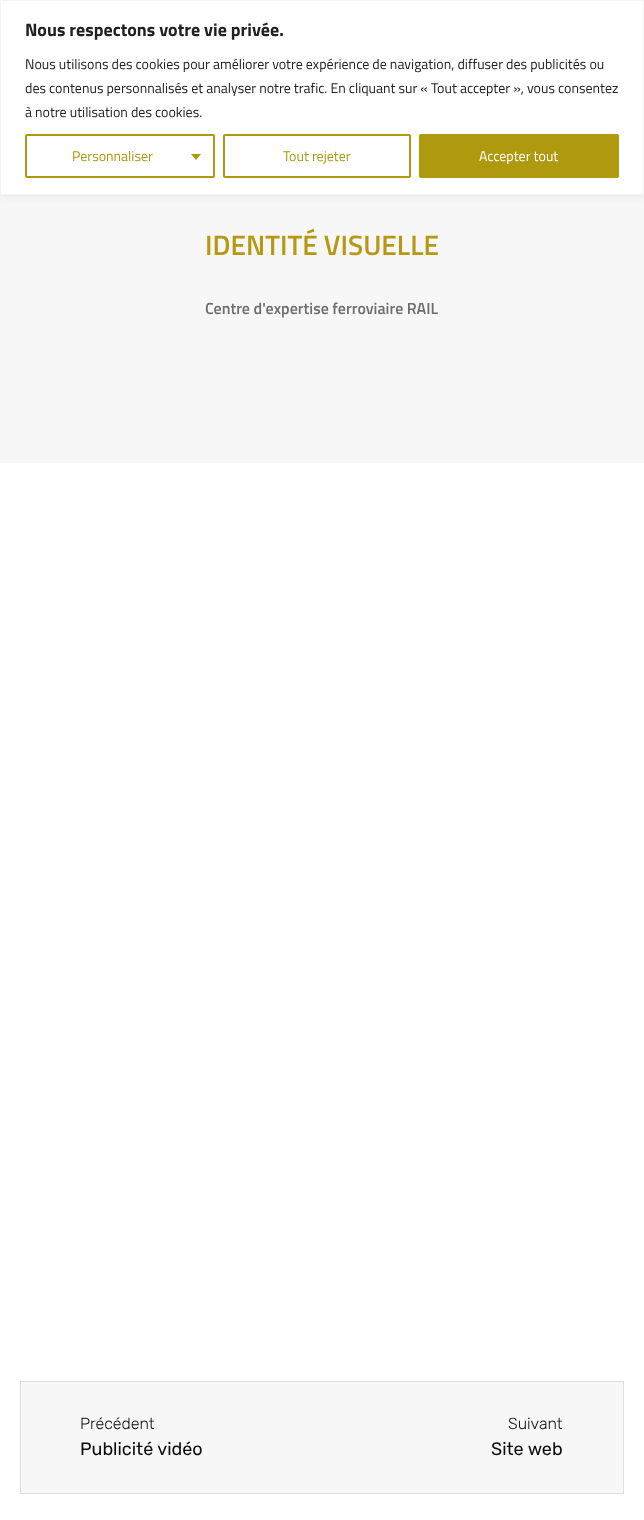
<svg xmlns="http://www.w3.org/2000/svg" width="644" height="1520">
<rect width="100%" height="100%" fill="#fff"/>
<rect y="195" width="644" height="268" fill="#f7f7f7"/>
<rect y="-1" width="644" height="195" fill="#acabab4d" filter="blur(5px)"/>
<rect x="0.5" y="0.5" width="643" height="194" fill="#fff" stroke="#f4f4f4"/>
<text x="25" y="36" style="font-family:Titillium Web;font-size:18px;font-weight:bold;fill:#212121">Nous respectons votre vie privée.</text>
<text x="25" y="69" style="font-family:Titillium Web;font-size:14px;fill:#212121">Nous utilisons des cookies pour améliorer votre expérience de navigation, diffuser des publicités ou</text>
<text x="25" y="93" style="font-family:Titillium Web;font-size:14px;fill:#212121">des contenus personnalisés et analyser notre trafic. En cliquant sur « Tout accepter », vous consentez</text>
<text x="25" y="117" style="font-family:Titillium Web;font-size:14px;fill:#212121">à notre utilisation des cookies.</text>
<rect x="26" y="135" width="188" height="42" rx="1" fill="none" stroke="#ae990f" stroke-width="2"/>
<text x="72" y="161" style="font-family:Titillium Web;font-size:14px;fill:#ae990f">Personnaliser</text>
<path d="M191 154h10l-5 6z" fill="#ae990f"/>
<rect x="224" y="135" width="186" height="42" rx="1" fill="none" stroke="#ae990f" stroke-width="2"/>
<text x="283" y="161" style="font-family:Titillium Web;font-size:14px;fill:#ae990f">Tout rejeter</text>
<rect x="420" y="135" width="198" height="42" rx="1" fill="#ae990f" stroke="#ae990f" stroke-width="2"/>
<text x="479" y="161" style="font-family:Titillium Web;font-size:14px;fill:#fff">Accepter tout</text>
<text x="205" y="255" style="font-family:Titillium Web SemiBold;font-size:28px;font-weight:600;fill:#b79813">IDENTITÉ VISUELLE</text>
<text x="205" y="314" style="font-family:Titillium Web SemiBold;font-size:16px;font-weight:600;fill:#6e6e6e">Centre d'expertise ferroviaire RAIL</text>
<rect x="20.5" y="1381.5" width="603" height="112" fill="#f7f7f7" stroke="#dfdfdf"/>
<text x="80" y="1429" style="font-family:Rubik;font-size:16px;font-weight:300;fill:#0c0c0c">Précédent</text>
<text x="80" y="1455" style="font-family:Rubik;font-size:18px;fill:#0c0c0c">Publicité vidéo</text>
<text x="508" y="1429" style="font-family:Rubik;font-size:16px;font-weight:300;fill:#0c0c0c">Suivant</text>
<text x="491" y="1455" style="font-family:Rubik;font-size:18px;fill:#0c0c0c">Site web</text>
</svg>
